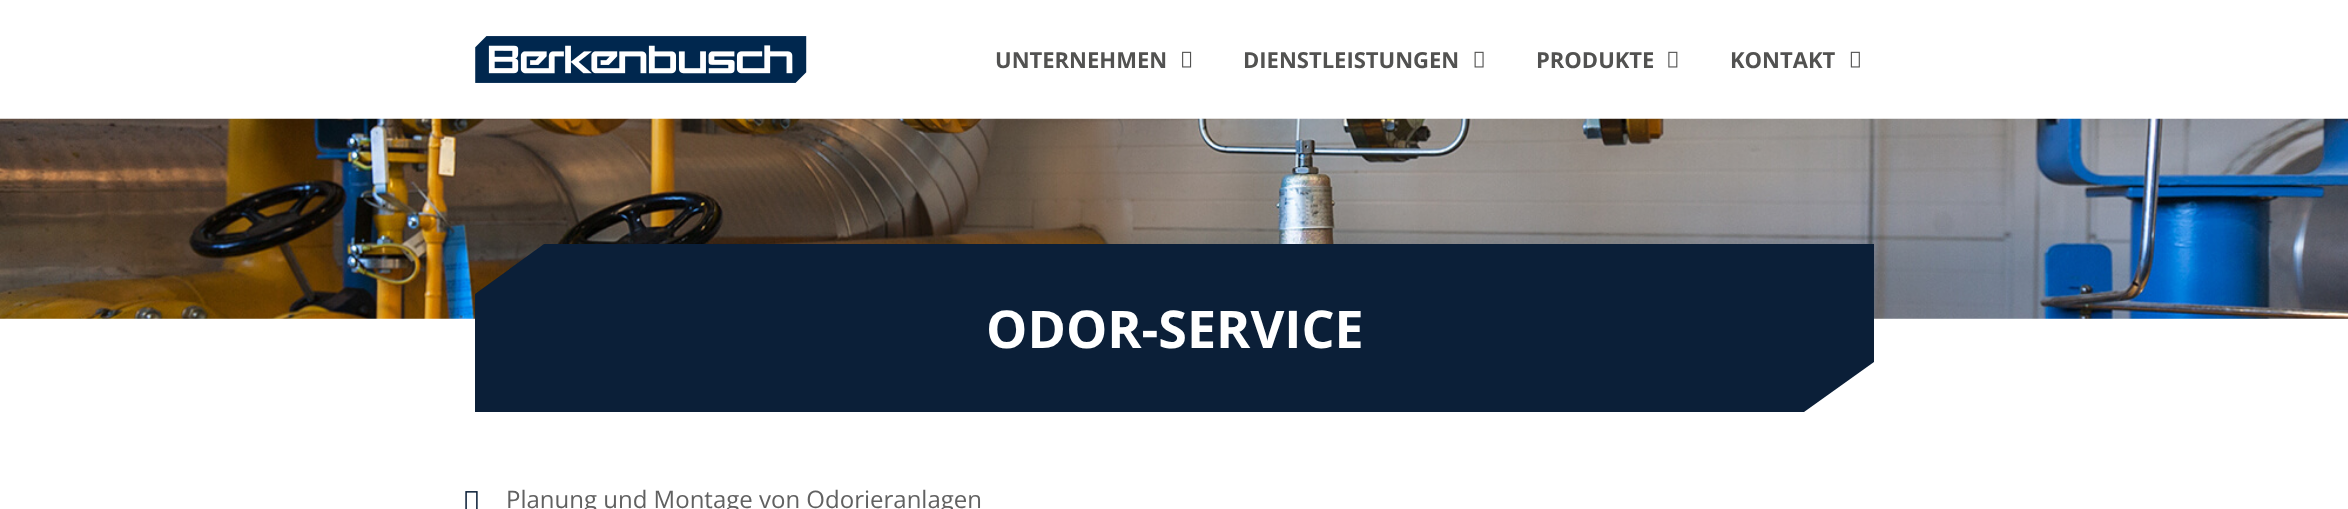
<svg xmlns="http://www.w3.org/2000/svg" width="2348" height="509">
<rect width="100%" height="100%" fill="#fff"/>
<image x="475" y="36" width="332" height="47" href="media/1.png"/>
<text x="995" y="68" style="font-family:Open Sans;font-size:22px;font-weight:bold;fill:#525251">UNTERNEHMEN</text>
<image x="1182" y="51" width="10" height="17" href="media/2.png"/>
<text x="1243" y="68" style="font-family:Open Sans;font-size:22px;font-weight:bold;fill:#525251">DIENSTLEISTUNGEN</text>
<image x="1474" y="51" width="10" height="17" href="media/3.png"/>
<text x="1536" y="68" style="font-family:Open Sans;font-size:22px;font-weight:bold;fill:#525251">PRODUKTE</text>
<image x="1668" y="51" width="10" height="17" href="media/4.png"/>
<text x="1730" y="68" style="font-family:Open Sans;font-size:22px;font-weight:bold;fill:#525251">KONTAKT</text>
<image x="1850" y="51" width="10" height="17" href="media/5.png"/>
<image x="0" y="118" width="2348" height="201" href="media/6.png"/>
<path d="M1874 244v118l-70 50h-1329v-118l69-50z" fill="#0b1f38"/>
<text x="986" y="348" style="font-family:Open Sans;font-size:52px;font-weight:bold;fill:#fff">ODOR-SERVICE</text>
<image x="465" y="491" width="13" height="18" href="media/7.png"/>
<text x="506" y="508" style="font-family:Open Sans;font-size:24px;fill:#616161">Planung und Montage von Odorieranlagen</text>
</svg>
